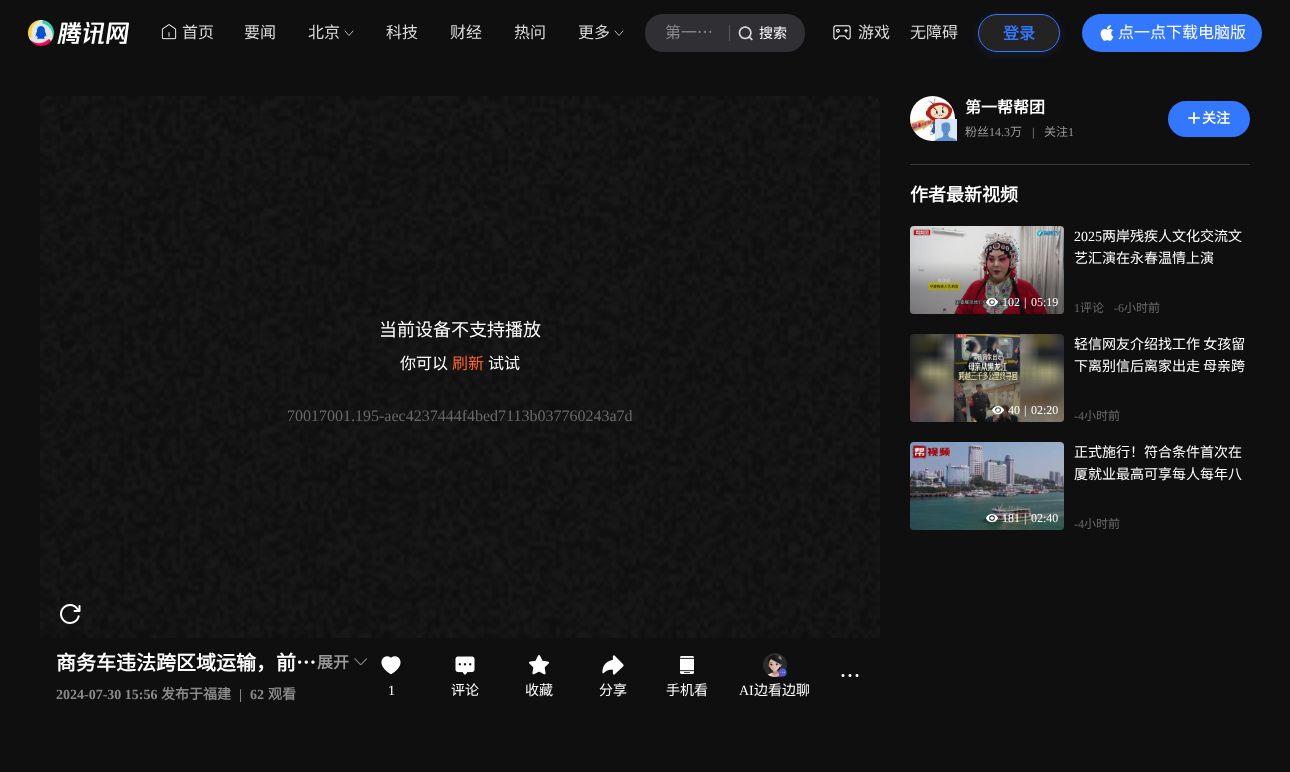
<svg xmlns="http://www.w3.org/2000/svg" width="1290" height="772">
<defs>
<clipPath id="clip1"><path d="M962 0h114v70h-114zm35 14h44c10.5 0 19 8.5 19 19c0 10.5-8.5 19-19 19h-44c-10.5 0-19-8.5-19-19c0-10.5 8.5-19 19-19z" clip-rule="evenodd"/></clipPath>
<linearGradient id="g1" gradientUnits="userSpaceOnUse" x1="987" y1="314" x2="987" y2="226"><stop offset="0.3" stop-color="#000" stop-opacity="0.3"/><stop offset="0.6" stop-color="#000" stop-opacity="0"/></linearGradient>
<linearGradient id="g2" gradientUnits="userSpaceOnUse" x1="987" y1="422" x2="987" y2="334"><stop offset="0.3" stop-color="#000" stop-opacity="0.3"/><stop offset="0.6" stop-color="#000" stop-opacity="0"/></linearGradient>
<linearGradient id="g3" gradientUnits="userSpaceOnUse" x1="987" y1="530" x2="987" y2="442"><stop offset="0.3" stop-color="#000" stop-opacity="0.3"/><stop offset="0.6" stop-color="#000" stop-opacity="0"/></linearGradient>
</defs>
<rect width="100%" height="100%" fill="#0f0f0f"/>
<image x="28" y="20" width="101" height="26" href="media/1.png"/>
<image x="161" y="24" width="16" height="16" href="media/2.png"/>
<text x="182" y="38" style="font-family:Noto Sans CJK SC;font-size:16px;fill:#d9d9d9">首页</text>
<text x="244" y="38" style="font-family:Noto Sans CJK SC;font-size:16px;fill:#d9d9d9">要闻</text>
<text x="308" y="38" style="font-family:Noto Sans CJK SC;font-size:16px;fill:#d9d9d9">北京</text>
<path d="M353 31l-4 4.5l-4-4.5" fill="none" stroke="#fff" stroke-width="0.7" stroke-linecap="round" stroke-linejoin="round"/>
<text x="386" y="38" style="font-family:Noto Sans CJK SC;font-size:16px;fill:#d9d9d9">科技</text>
<text x="450" y="38" style="font-family:Noto Sans CJK SC;font-size:16px;fill:#d9d9d9">财经</text>
<text x="514" y="38" style="font-family:Noto Sans CJK SC;font-size:16px;fill:#d9d9d9">热问</text>
<text x="578" y="38" style="font-family:Noto Sans CJK SC;font-size:16px;fill:#d9d9d9">更多</text>
<path d="M623 31l-4 4.5l-4-4.5" fill="none" stroke="#fff" stroke-width="0.7" stroke-linecap="round" stroke-linejoin="round"/>
<rect x="645" y="14" width="160" height="38" rx="18" fill="#2f2f34"/>
<text x="665" y="38" style="font-family:Noto Sans CJK SC;font-size:16px;fill:#8b8b8b">第一…</text>
<rect x="729" y="25" width="1" height="16" fill="#59595d"/>
<image x="738" y="26" width="15" height="15" href="media/3.png"/>
<text x="759" y="38" style="font-family:Noto Sans CJK SC;font-size:14px;fill:#fff">搜索</text>
<image x="833" y="25" width="18" height="15" href="media/4.png"/>
<text x="858" y="38" style="font-family:Noto Sans CJK SC;font-size:16px;fill:#d9d9d9">游戏</text>
<text x="910" y="38" style="font-family:Noto Sans CJK SC;font-size:16px;fill:#d9d9d9">无障碍</text>
<g clip-path="url(#clip1)">
<rect x="978" y="16" width="82" height="38" rx="19" fill="#3377ff29" filter="blur(5px)"/>
</g>
<rect x="978.5" y="14.5" width="81" height="37" rx="18.5" fill="#d9d9d91a" stroke="#37f"/>
<text x="1003" y="39" style="font-family:Noto Sans CJK SC;font-size:16px;font-weight:bold;fill:#37f">登录</text>
<rect x="1082" y="14" width="180" height="38" rx="19" fill="#37f"/>
<image x="1100" y="25" width="14" height="16" href="media/5.png"/>
<text x="1118" y="38" style="font-family:Noto Sans CJK SC;font-size:16px;fill:#fff">点一点下载电脑版</text>
<image x="40" y="96" width="840" height="542" href="media/6.png"/>
<text x="379" y="336" style="font-family:Noto Sans CJK SC;font-size:18px;fill:#fff">当前设备不支持播放</text>
<text x="400" y="369" style="font-family:Noto Sans CJK SC;font-size:16px;fill:#fff">你可以</text>
<text x="452" y="369" style="font-family:Noto Sans CJK SC;font-size:16px;fill:#fc6526">刷新</text>
<text x="488" y="369" style="font-family:Noto Sans CJK SC;font-size:16px;fill:#fff">试试</text>
<text x="287" y="421" style="font-family:Liberation Serif;font-size:16px;fill:#696969">70017001.195-aec4237444f4bed7113b037760243a7d</text>
<text x="56" y="670" style="font-family:Noto Sans CJK SC;font-size:20px;font-weight:bold;fill:#fff">商务车违法跨区域运输，前…</text>
<text x="317" y="668" style="font-family:Noto Sans CJK SC;font-size:16px;font-weight:bold;fill:#999">展开</text>
<image x="354" y="658" width="13" height="7" href="media/7.png"/>
<text x="56" y="699" style="font-family:Liberation Serif;font-size:14px;font-weight:bold;fill:#8b8b8b">2024-07-30 15:56</text>
<text x="161" y="699" style="font-family:Noto Sans CJK SC;font-size:14px;font-weight:bold;fill:#8b8b8b">发布于福建</text>
<text x="239" y="699" style="font-family:Liberation Serif;font-size:14px;font-weight:bold;fill:#8b8b8b">|</text>
<text x="250" y="699" style="font-family:Liberation Serif;font-size:14px;font-weight:bold;fill:#8b8b8b">62</text>
<text x="268" y="699" style="font-family:Noto Sans CJK SC;font-size:14px;font-weight:bold;fill:#8b8b8b">观看</text>
<image x="841" y="674" width="18" height="3" href="media/8.png"/>
<image x="381" y="656" width="20" height="19" href="media/9.png"/>
<text x="388" y="695" style="font-family:Liberation Serif;font-size:14px;fill:#fff">1</text>
<image x="455" y="656" width="20" height="19" href="media/10.png"/>
<text x="451" y="695" style="font-family:Noto Sans CJK SC;font-size:14px;fill:#fff">评论</text>
<image x="529" y="655" width="20" height="20" href="media/11.png"/>
<text x="525" y="695" style="font-family:Noto Sans CJK SC;font-size:14px;fill:#fff">收藏</text>
<image x="602" y="655" width="22" height="20" href="media/12.png"/>
<text x="599" y="695" style="font-family:Noto Sans CJK SC;font-size:14px;fill:#fff">分享</text>
<image x="680" y="656" width="14" height="18" href="media/13.png"/>
<text x="666" y="695" style="font-family:Noto Sans CJK SC;font-size:14px;fill:#fff">手机看</text>
<image x="763" y="653" width="24" height="24" href="media/14.png"/>
<image x="778" y="668" width="9" height="9" href="media/15.png"/>
<text x="739" y="695" style="font-family:Liberation Serif;font-size:14px;fill:#fff">AI</text>
<text x="754" y="695" style="font-family:Noto Sans CJK SC;font-size:14px;fill:#fff">边看边聊</text>
<image x="910" y="96" width="45" height="45" href="media/16.png"/>
<image x="935" y="119" width="22" height="22" href="media/17.png"/>
<text x="965" y="113" style="font-family:Noto Sans CJK SC;font-size:16px;font-weight:bold;fill:#fff">第一帮帮团</text>
<text x="965" y="136" style="font-family:Noto Sans CJK SC;font-size:12px;fill:#999">粉丝</text>
<text x="989" y="136" style="font-family:Liberation Serif;font-size:12px;fill:#999">14.3</text>
<text x="1010" y="136" style="font-family:Noto Sans CJK SC;font-size:12px;fill:#999">万</text>
<text x="1032" y="136" style="font-family:Liberation Serif;font-size:12px;fill:#999">|</text>
<text x="1044" y="136" style="font-family:Noto Sans CJK SC;font-size:12px;fill:#999">关注</text>
<text x="1068" y="136" style="font-family:Liberation Serif;font-size:12px;fill:#999">1</text>
<rect x="1168" y="101" width="82" height="36" rx="18" fill="#37f"/>
<image x="1188" y="112" width="12" height="12" href="media/18.png"/>
<text x="1202" y="123" style="font-family:Noto Sans CJK SC;font-size:14px;font-weight:bold;fill:#fff">关注</text>
<rect x="910" y="164" width="340" height="1" fill="#383838"/>
<text x="910" y="201" style="font-family:Noto Sans CJK SC;font-size:18px;font-weight:bold;fill:#fff">作者最新视频</text>
<image x="910" y="226" width="154" height="88" href="media/19.png"/>
<rect x="910" y="226" width="154" height="88" rx="4" fill="url(#g1)"/>
<image x="986" y="298" width="12" height="9" href="media/20.png"/>
<text x="1002" y="306" style="font-family:Liberation Serif;font-size:12px;fill:#fff">102</text>
<text x="1024" y="306" style="font-family:Liberation Serif;font-size:12px;fill:#fff">|</text>
<text x="1031" y="306" style="font-family:Liberation Serif;font-size:12px;fill:#fff">05:19</text>
<text x="1074" y="241" style="font-family:Liberation Serif;font-size:14px;fill:#fff">2025</text>
<text x="1102" y="241" style="font-family:Noto Sans CJK SC;font-size:14px;fill:#fff">两岸残疾人文化交流文</text>
<text x="1074" y="263" style="font-family:Noto Sans CJK SC;font-size:14px;fill:#fff">艺汇演在永春温情上演</text>
<text x="1074" y="312" style="font-family:Liberation Serif;font-size:12px;fill:#696969">1</text>
<text x="1080" y="312" style="font-family:Noto Sans CJK SC;font-size:12px;fill:#696969">评论</text>
<text x="1114" y="312" style="font-family:Liberation Serif;font-size:12px;fill:#696969">-6</text>
<text x="1124" y="312" style="font-family:Noto Sans CJK SC;font-size:12px;fill:#696969">小时前</text>
<image x="910" y="334" width="154" height="88" href="media/21.png"/>
<rect x="910" y="334" width="154" height="88" rx="4" fill="url(#g2)"/>
<image x="992" y="406" width="12" height="9" href="media/22.png"/>
<text x="1008" y="414" style="font-family:Liberation Serif;font-size:12px;fill:#fff">40</text>
<text x="1024" y="414" style="font-family:Liberation Serif;font-size:12px;fill:#fff">|</text>
<text x="1031" y="414" style="font-family:Liberation Serif;font-size:12px;fill:#fff">02:20</text>
<text x="1074" y="349" style="font-family:Noto Sans CJK SC;font-size:14px;fill:#fff">轻信网友介绍找工作 女孩留</text>
<text x="1074" y="371" style="font-family:Noto Sans CJK SC;font-size:14px;fill:#fff">下离别信后离家出走</text>
<text x="1203" y="371" style="font-family:Noto Sans CJK SC;font-size:14px;fill:#fff">母亲跨</text>
<text x="1074" y="420" style="font-family:Liberation Serif;font-size:12px;fill:#696969">-4</text>
<text x="1084" y="420" style="font-family:Noto Sans CJK SC;font-size:12px;fill:#696969">小时前</text>
<image x="910" y="442" width="154" height="88" href="media/23.png"/>
<rect x="910" y="442" width="154" height="88" rx="4" fill="url(#g3)"/>
<image x="986" y="514" width="12" height="9" href="media/24.png"/>
<text x="1002" y="522" style="font-family:Liberation Serif;font-size:12px;fill:#fff">181</text>
<text x="1024" y="522" style="font-family:Liberation Serif;font-size:12px;fill:#fff">|</text>
<text x="1031" y="522" style="font-family:Liberation Serif;font-size:12px;fill:#fff">02:40</text>
<text x="1074" y="457" style="font-family:Noto Sans CJK SC;font-size:14px;fill:#fff">正式施行！符合条件首次在</text>
<text x="1074" y="479" style="font-family:Noto Sans CJK SC;font-size:14px;fill:#fff">厦就业最高可享每人每年八</text>
<text x="1074" y="528" style="font-family:Liberation Serif;font-size:12px;fill:#696969">-4</text>
<text x="1084" y="528" style="font-family:Noto Sans CJK SC;font-size:12px;fill:#696969">小时前</text>
</svg>
